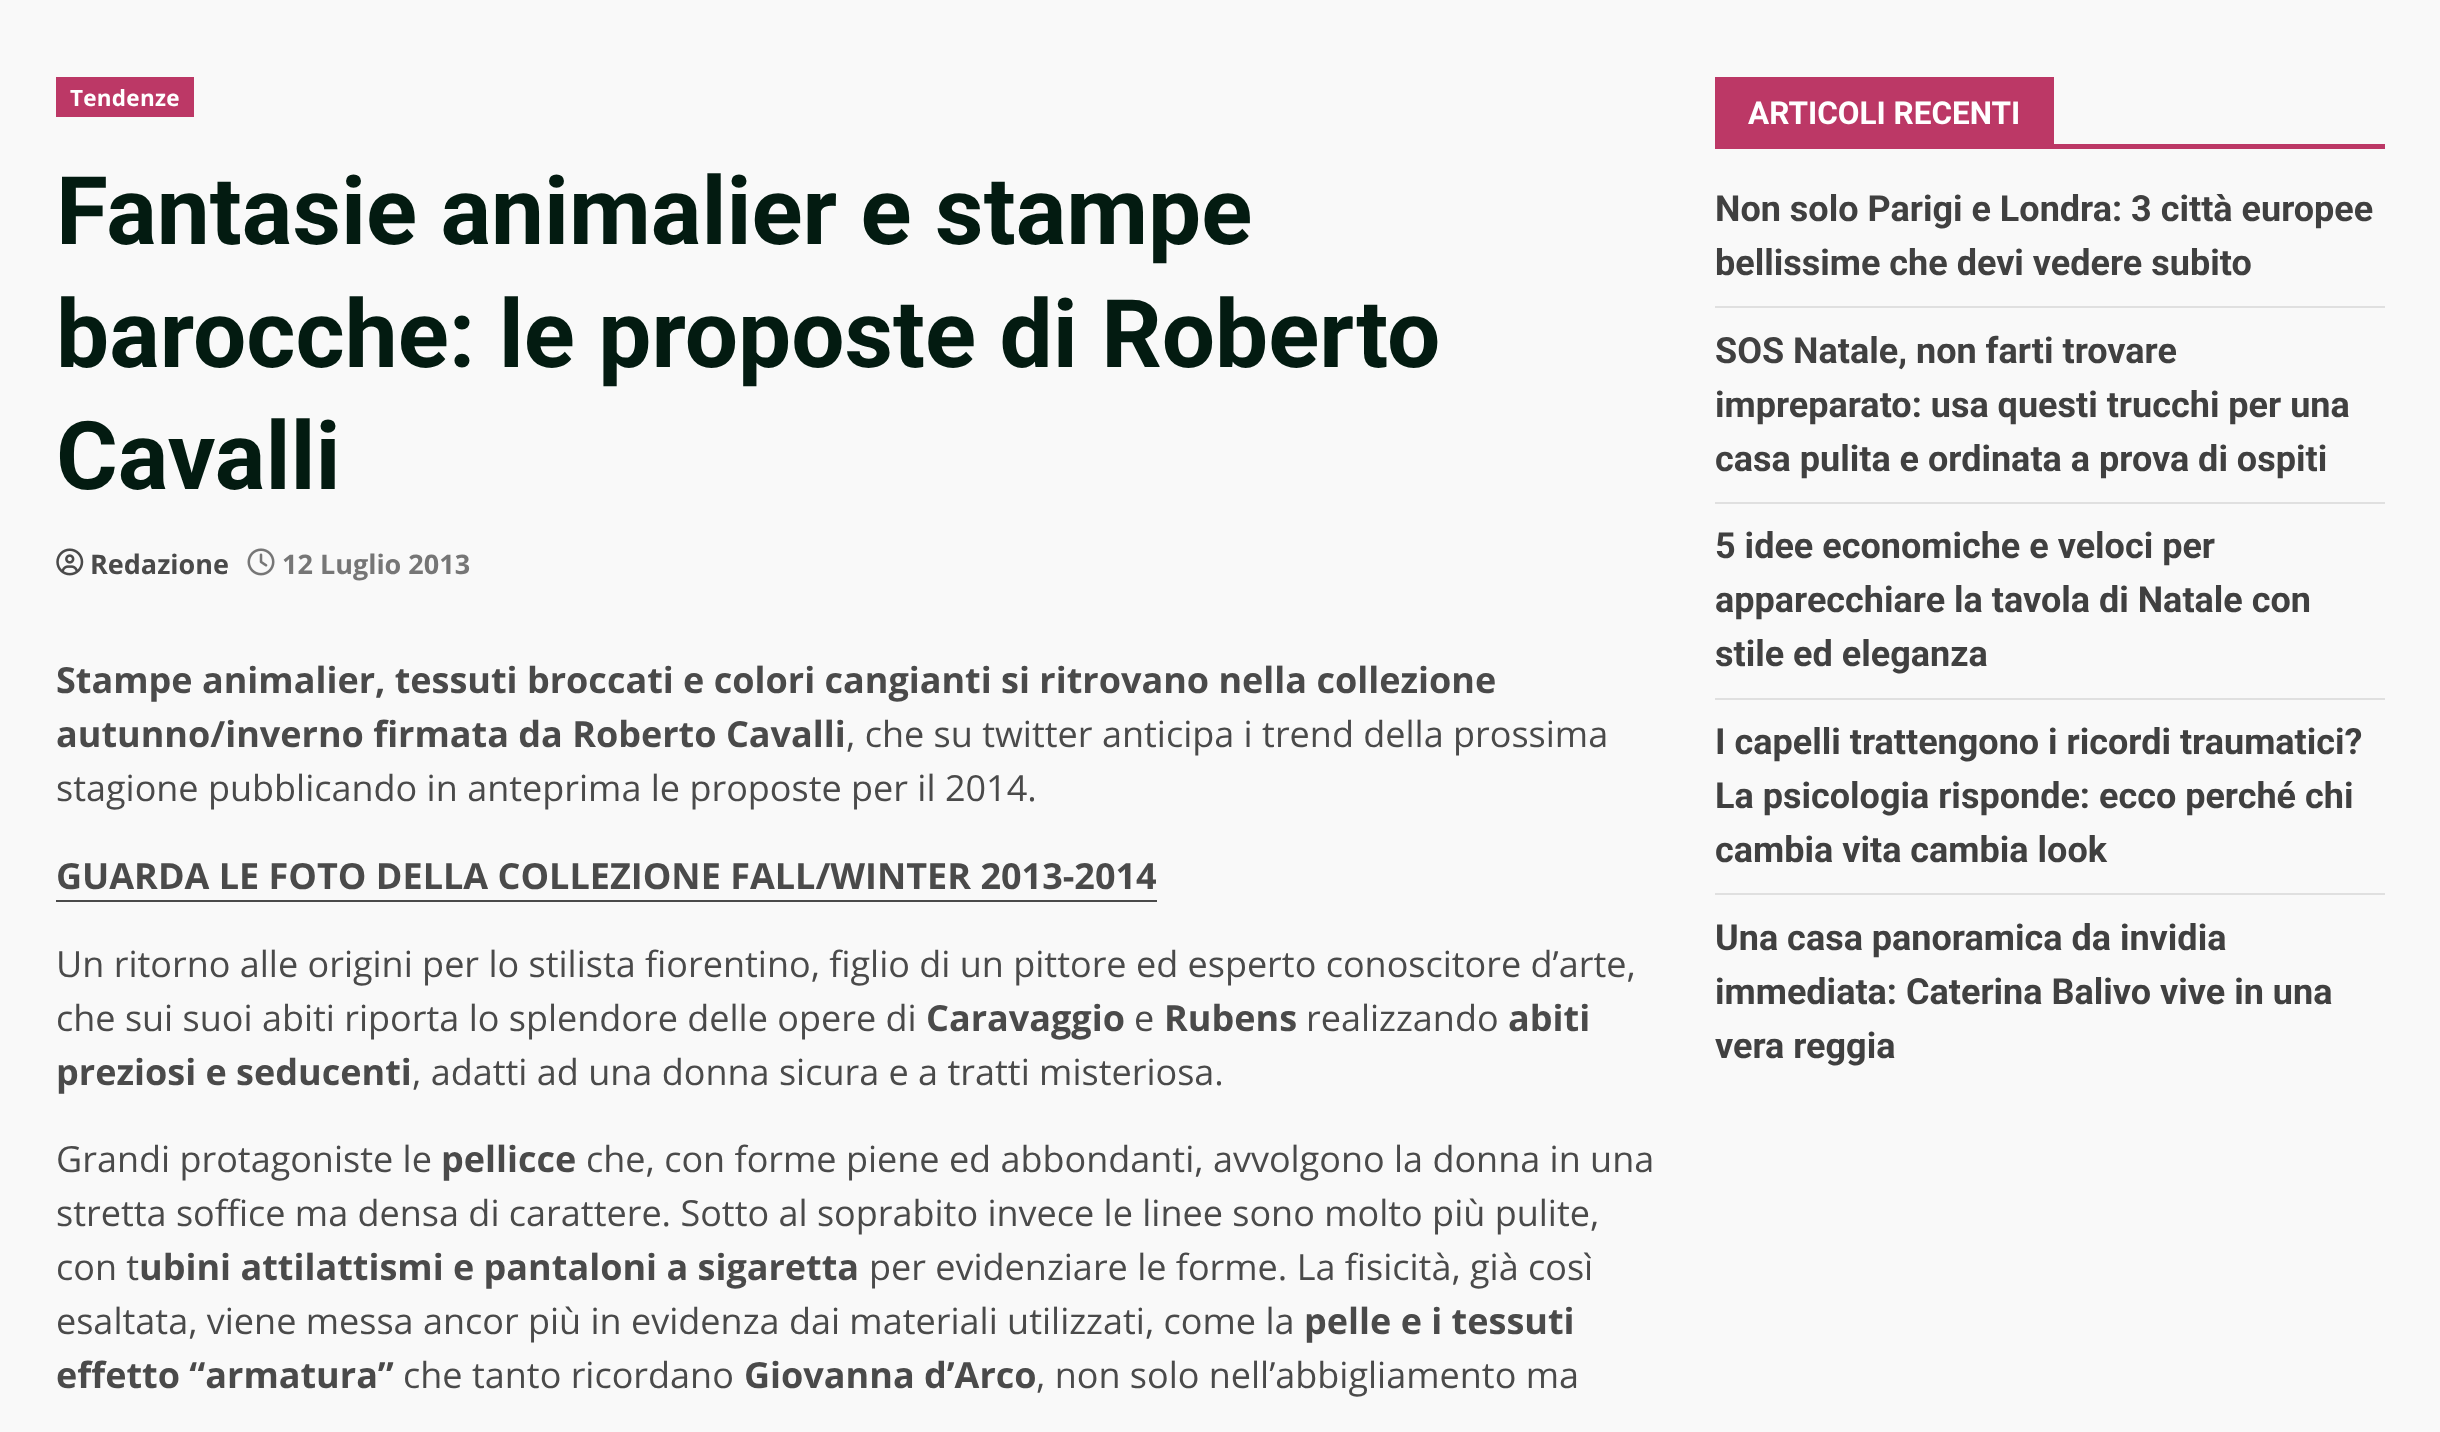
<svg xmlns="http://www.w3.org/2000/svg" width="2440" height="1432">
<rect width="100%" height="100%" fill="#f9f9f9"/>
<rect x="56" y="77" width="138" height="40" fill="#bc3866"/>
<text x="70" y="106" style="font-family:Open Sans;font-size:22.5px;font-weight:bold;letter-spacing:0.25px;fill:#fff">Tendenze</text>
<text x="56" y="244" style="font-family:Roboto;font-size:94.5px;font-weight:bold;fill:#031b11">Fantasie animalier e stampe</text>
<text x="56" y="367" style="font-family:Roboto;font-size:94.5px;font-weight:bold;fill:#031b11">barocche: le proposte di Roberto</text>
<text x="56" y="489" style="font-family:Roboto;font-size:94.5px;font-weight:bold;fill:#031b11">Cavalli</text>
<image x="56" y="548" width="28" height="28" href="media/1.png"/>
<text x="90" y="574" style="font-family:Open Sans;font-size:27px;font-weight:bold;fill:#4a4a4a">Redazione</text>
<image x="247" y="548" width="28" height="28" href="media/2.png"/>
<text x="282" y="574" style="font-family:Open Sans;font-size:27px;font-weight:bold;fill:#767676">12 Luglio 2013</text>
<text x="56" y="693" style="font-family:Open Sans;font-size:36px;font-weight:bold;fill:#4a4a4a">Stampe animalier, tessuti broccati e colori cangianti si ritrovano nella collezione</text>
<text x="56" y="747" style="font-family:Open Sans;font-size:36px;font-weight:bold;fill:#4a4a4a">autunno/inverno firmata da Roberto Cavalli</text>
<text x="846" y="747" style="font-family:Open Sans;font-size:36px;fill:#4a4a4a">, che su twitter anticipa i trend della prossima</text>
<text x="56" y="801" style="font-family:Open Sans;font-size:36px;fill:#4a4a4a">stagione pubblicando in anteprima le proposte per il 2014.</text>
<text x="56" y="889" style="font-family:Open Sans;font-size:36px;font-weight:bold;fill:#4a4a4a">GUARDA LE FOTO DELLA COLLEZIONE FALL/WINTER 2013-2014</text>
<rect x="56" y="900" width="1101" height="2" fill="#4a4a4a"/>
<text x="56" y="977" style="font-family:Open Sans;font-size:36px;fill:#4a4a4a">Un ritorno alle origini per lo stilista fiorentino, figlio di un pittore ed esperto conoscitore d’arte,</text>
<text x="56" y="1031" style="font-family:Open Sans;font-size:36px;fill:#4a4a4a">che sui suoi abiti riporta lo splendore delle opere di</text>
<text x="926" y="1031" style="font-family:Open Sans;font-size:36px;font-weight:bold;fill:#4a4a4a">Caravaggio</text>
<text x="1134" y="1031" style="font-family:Open Sans;font-size:36px;fill:#4a4a4a">e</text>
<text x="1164" y="1031" style="font-family:Open Sans;font-size:36px;font-weight:bold;fill:#4a4a4a">Rubens</text>
<text x="1306" y="1031" style="font-family:Open Sans;font-size:36px;fill:#4a4a4a">realizzando</text>
<text x="1508" y="1031" style="font-family:Open Sans;font-size:36px;font-weight:bold;fill:#4a4a4a">abiti</text>
<text x="56" y="1085" style="font-family:Open Sans;font-size:36px;font-weight:bold;fill:#4a4a4a">preziosi e seducenti</text>
<text x="412" y="1085" style="font-family:Open Sans;font-size:36px;fill:#4a4a4a">, adatti ad una donna sicura e a tratti misteriosa.</text>
<text x="56" y="1172" style="font-family:Open Sans;font-size:36px;fill:#4a4a4a">Grandi protagoniste le</text>
<text x="441" y="1172" style="font-family:Open Sans;font-size:36px;font-weight:bold;fill:#4a4a4a">pellicce</text>
<text x="586" y="1172" style="font-family:Open Sans;font-size:36px;fill:#4a4a4a">che, con forme piene ed abbondanti, avvolgono la donna in una</text>
<text x="56" y="1226" style="font-family:Open Sans;font-size:36px;fill:#4a4a4a">stretta soffice ma densa di carattere. Sotto al soprabito invece le linee sono molto più pulite,</text>
<text x="56" y="1280" style="font-family:Open Sans;font-size:36px;fill:#4a4a4a">con t</text>
<text x="139" y="1280" style="font-family:Open Sans;font-size:36px;font-weight:bold;fill:#4a4a4a">ubini attilattismi e pantaloni a sigaretta</text>
<text x="869" y="1280" style="font-family:Open Sans;font-size:36px;fill:#4a4a4a">per evidenziare le forme. La fisicità, già così</text>
<text x="56" y="1334" style="font-family:Open Sans;font-size:36px;fill:#4a4a4a">esaltata, viene messa ancor più in evidenza dai materiali utilizzati, come la</text>
<text x="1304" y="1334" style="font-family:Open Sans;font-size:36px;font-weight:bold;fill:#4a4a4a">pelle e i tessuti</text>
<text x="56" y="1388" style="font-family:Open Sans;font-size:36px;font-weight:bold;fill:#4a4a4a">effetto “armatura”</text>
<text x="403" y="1388" style="font-family:Open Sans;font-size:36px;fill:#4a4a4a">che tanto ricordano</text>
<text x="744" y="1388" style="font-family:Open Sans;font-size:36px;font-weight:bold;fill:#4a4a4a">Giovanna d’Arco</text>
<text x="1036" y="1388" style="font-family:Open Sans;font-size:36px;fill:#4a4a4a">, non solo nell’abbigliamento ma</text>
<rect x="1715" y="144" width="670" height="5" fill="#bc3866"/>
<rect x="1715" y="77" width="339" height="67" fill="#bc3866"/>
<text x="1748" y="124" style="font-family:Roboto;font-size:31.5px;font-weight:bold;fill:#fff">ARTICOLI RECENTI</text>
<rect x="1715" y="306" width="670" height="2" fill="#e0e0e0"/>
<text x="1715" y="221" style="font-family:Roboto;font-size:36px;font-weight:bold;fill:#404040">Non solo Parigi e Londra: 3 città europee</text>
<text x="1715" y="275" style="font-family:Roboto;font-size:36px;font-weight:bold;fill:#404040">bellissime che devi vedere subito</text>
<rect x="1715" y="502" width="670" height="2" fill="#e0e0e0"/>
<text x="1715" y="363" style="font-family:Roboto;font-size:36px;font-weight:bold;fill:#404040">SOS Natale, non farti trovare</text>
<text x="1715" y="417" style="font-family:Roboto;font-size:36px;font-weight:bold;fill:#404040">impreparato: usa questi trucchi per una</text>
<text x="1715" y="471" style="font-family:Roboto;font-size:36px;font-weight:bold;fill:#404040">casa pulita e ordinata a prova di ospiti</text>
<rect x="1715" y="698" width="670" height="2" fill="#e0e0e0"/>
<text x="1715" y="558" style="font-family:Roboto;font-size:36px;font-weight:bold;fill:#404040">5 idee economiche e veloci per</text>
<text x="1715" y="612" style="font-family:Roboto;font-size:36px;font-weight:bold;fill:#404040">apparecchiare la tavola di Natale con</text>
<text x="1715" y="666" style="font-family:Roboto;font-size:36px;font-weight:bold;fill:#404040">stile ed eleganza</text>
<rect x="1715" y="893" width="670" height="2" fill="#e0e0e0"/>
<text x="1715" y="754" style="font-family:Roboto;font-size:36px;font-weight:bold;fill:#404040">I capelli trattengono i ricordi traumatici?</text>
<text x="1715" y="808" style="font-family:Roboto;font-size:36px;font-weight:bold;fill:#404040">La psicologia risponde: ecco perché chi</text>
<text x="1715" y="862" style="font-family:Roboto;font-size:36px;font-weight:bold;fill:#404040">cambia vita cambia look</text>
<text x="1715" y="950" style="font-family:Roboto;font-size:36px;font-weight:bold;fill:#404040">Una casa panoramica da invidia</text>
<text x="1715" y="1004" style="font-family:Roboto;font-size:36px;font-weight:bold;fill:#404040">immediata: Caterina Balivo vive in una</text>
<text x="1715" y="1058" style="font-family:Roboto;font-size:36px;font-weight:bold;fill:#404040">vera reggia</text>
</svg>
